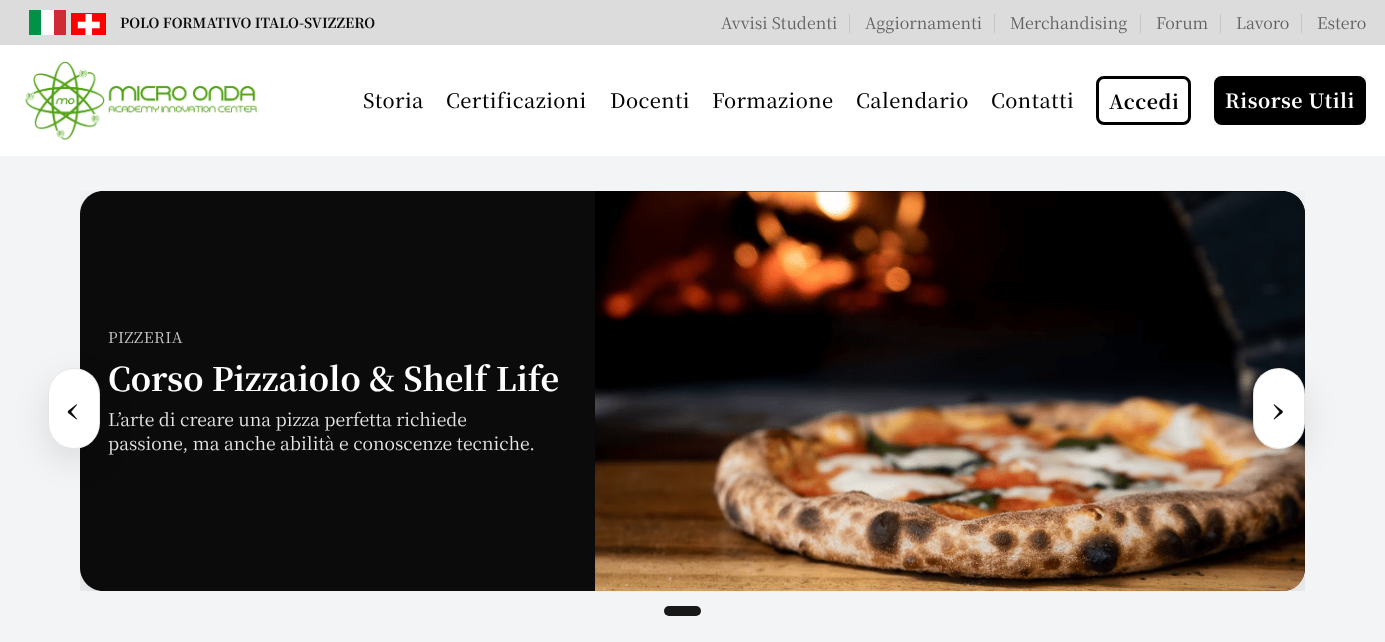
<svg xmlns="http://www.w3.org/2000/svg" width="1385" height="642">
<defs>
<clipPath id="clip1"><rect x="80" y="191" width="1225" height="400"/></clipPath>
</defs>
<rect width="100%" height="100%" fill="#fff"/>
<rect width="1385" height="45" fill="#dcdcdc"/>
<rect x="29" y="10" width="12" height="25" fill="#009246"/>
<rect x="41" y="10" width="13" height="25" fill="#fff"/>
<rect x="54" y="10" width="12" height="25" fill="#ce2b37"/>
<image x="71" y="13" width="35" height="22" href="media/1.png"/>
<text x="120" y="28" style="font-family:Noto Serif JP;font-size:13.75px;font-weight:bold;fill:#0a0a0a">POLO FORMATIVO ITALO-SVIZZERO</text>
<text x="721" y="29" style="font-family:Noto Serif JP;font-size:16px;fill:#606060">Avvisi Studenti</text>
<rect x="849" y="14" width="1" height="19" fill="#c6c6c6"/>
<text x="865" y="29" style="font-family:Noto Serif JP;font-size:16px;fill:#606060">Aggiornamenti</text>
<rect x="994" y="14" width="1" height="19" fill="#c6c6c6"/>
<text x="1010" y="29" style="font-family:Noto Serif JP;font-size:16px;fill:#606060">Merchandising</text>
<rect x="1140" y="14" width="1" height="19" fill="#c6c6c6"/>
<text x="1156" y="29" style="font-family:Noto Serif JP;font-size:16px;fill:#606060">Forum</text>
<rect x="1220" y="14" width="1" height="19" fill="#c6c6c6"/>
<text x="1236" y="29" style="font-family:Noto Serif JP;font-size:16px;fill:#606060">Lavoro</text>
<rect x="1301" y="14" width="1" height="19" fill="#c6c6c6"/>
<text x="1317" y="29" style="font-family:Noto Serif JP;font-size:16px;fill:#606060">Estero</text>
<rect y="156" width="1385" height="486" fill="#f3f4f6"/>
<g clip-path="url(#clip1)">
<rect x="80" y="214" width="1225" height="400" rx="23" fill="#0000001f" filter="blur(28px)"/>
</g>
<image x="25" y="61" width="232" height="80" href="media/2.png"/>
<text x="363" y="108" style="font-family:Noto Serif JP;font-size:20px;font-weight:500;letter-spacing:0.4px;fill:#000">Storia</text>
<text x="446" y="108" style="font-family:Noto Serif JP;font-size:20px;font-weight:500;letter-spacing:0.4px;fill:#000">Certificazioni</text>
<text x="610" y="108" style="font-family:Noto Serif JP;font-size:20px;font-weight:500;letter-spacing:0.4px;fill:#000">Docenti</text>
<text x="712" y="108" style="font-family:Noto Serif JP;font-size:20px;font-weight:500;letter-spacing:0.4px;fill:#000">Formazione</text>
<text x="856" y="108" style="font-family:Noto Serif JP;font-size:20px;font-weight:500;letter-spacing:0.4px;fill:#000">Calendario</text>
<text x="991" y="108" style="font-family:Noto Serif JP;font-size:20px;font-weight:500;letter-spacing:0.4px;fill:#000">Contatti</text>
<rect x="1097.5" y="77.5" width="92" height="46" rx="6.5" fill="none" stroke="#000" stroke-width="3"/>
<text x="1109" y="109" style="font-family:Noto Serif JP;font-size:19.5px;font-weight:bold;letter-spacing:0.6px;fill:#000">Accedi</text>
<rect x="1214" y="76" width="152" height="49" rx="8" fill="#000"/>
<rect x="1214.5" y="76.5" width="151" height="48" fill="none" stroke="#0000000d"/>
<text x="1225" y="108" style="font-family:Noto Serif JP;font-size:19.5px;font-weight:bold;letter-spacing:0.6px;fill:#fff">Risorse Utili</text>
<path d="M103 191h492v400h-492c-12.5 0-23-10.5-23-23v-354c0-12.5 10.5-23 23-23z" fill="#0b0b0b"/>
<rect x="48" y="380" width="52" height="81" rx="26" fill="#0000001a" filter="blur(16px)"/>
<rect x="48" y="368" width="52" height="81" rx="26" fill="#fff"/>
<rect x="48.5" y="368.5" width="51" height="80" rx="25.5" fill="none" stroke="#0000001a"/>
<text x="67" y="421" style="font-family:Noto Serif JP;font-size:32.5px;font-weight:bold;letter-spacing:1px;fill:#0a0a0a">‹</text>
<text x="108" y="343" style="font-family:Noto Serif JP;font-size:15px;letter-spacing:0.5px;fill:#cecece">PIZZERIA</text>
<text x="108" y="391" style="font-family:Noto Serif JP;font-size:32.5px;font-weight:bold;fill:#fff">Corso Pizzaiolo &amp; Shelf Life</text>
<text x="108" y="426" style="font-family:Noto Serif JP;font-size:17.5px;fill:#e7e7e7">L’arte di creare una pizza perfetta richiede</text>
<text x="108" y="450" style="font-family:Noto Serif JP;font-size:17.5px;fill:#e7e7e7">passione, ma anche abilità e conoscenze tecniche.</text>
<path d="M595 191h687c12.5 0 23 10.5 23 23v354c0 12.5-10.5 23-23 23h-687z" fill="#000"/>
<image x="595" y="191" width="710" height="401" href="media/3.png"/>
<rect x="1253" y="380" width="52" height="81" rx="26" fill="#0000001a" filter="blur(16px)"/>
<rect x="1253" y="368" width="52" height="81" rx="26" fill="#fff"/>
<rect x="1253.5" y="368.5" width="51" height="80" rx="25.5" fill="none" stroke="#0000001a"/>
<text x="1272" y="421" style="font-family:Noto Serif JP;font-size:32.5px;font-weight:bold;letter-spacing:1px;fill:#0a0a0a">›</text>
<rect x="664" y="606" width="37" height="10" rx="5" fill="#181819"/>
</svg>
